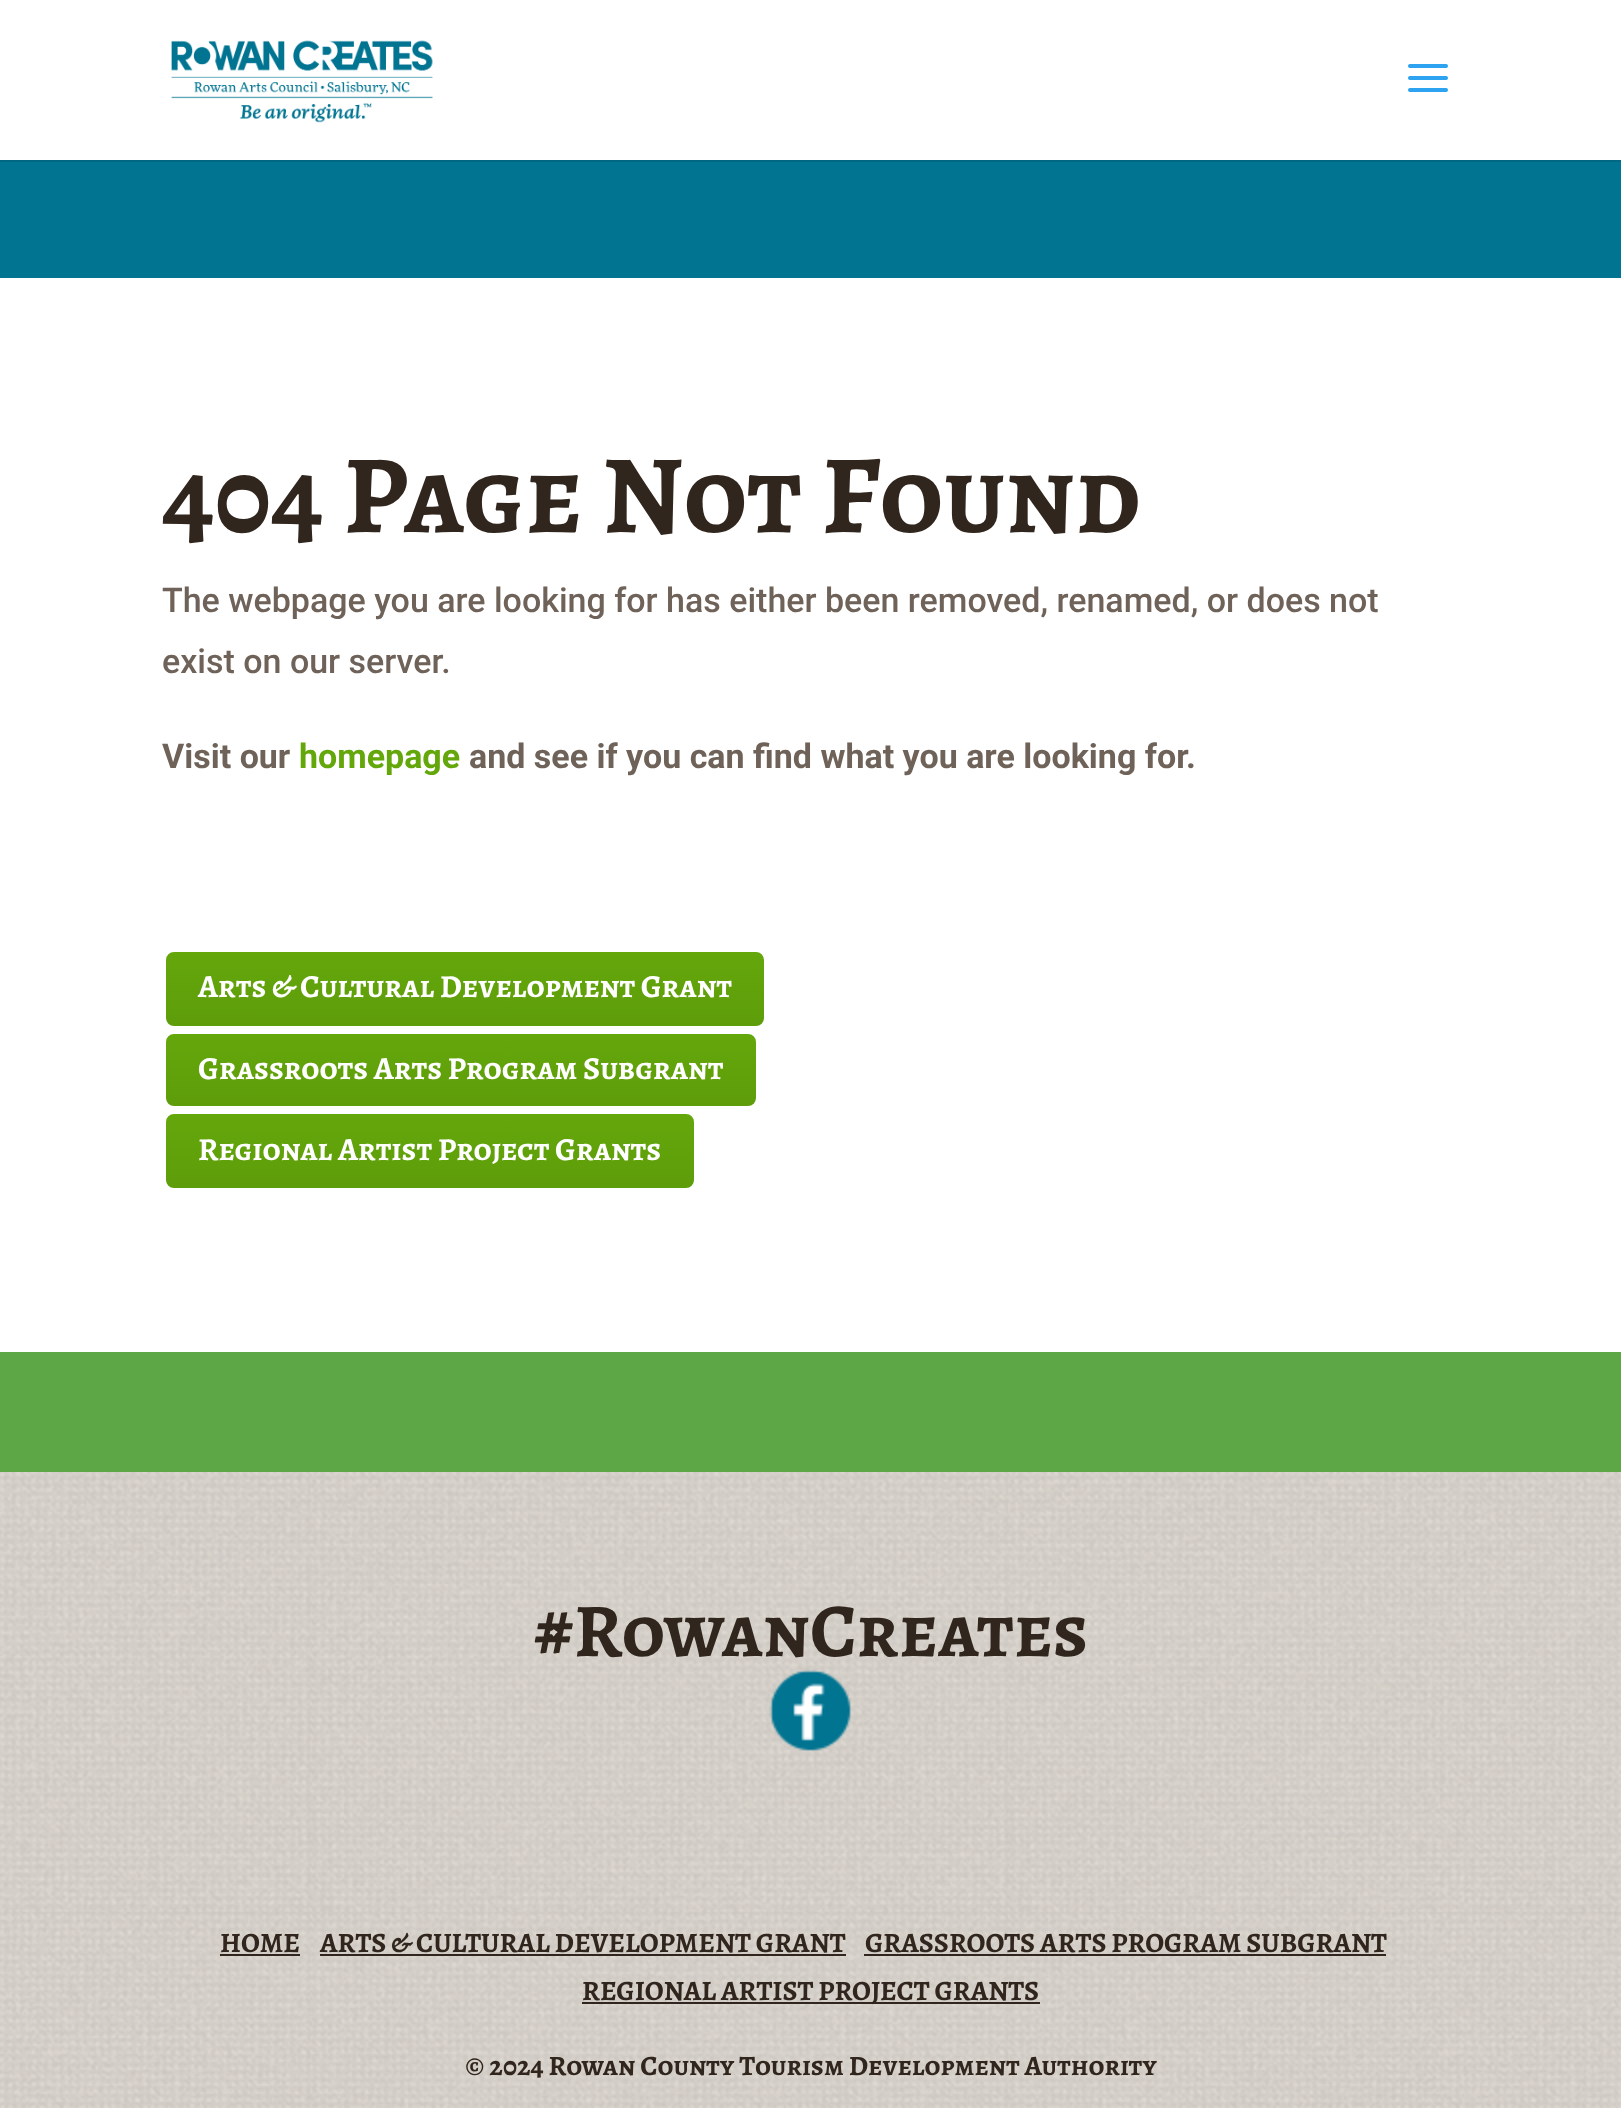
<svg xmlns="http://www.w3.org/2000/svg" width="1621" height="2108">
<defs>
<linearGradient id="g1" gradientUnits="userSpaceOnUse" x1="465" y1="952" x2="465" y2="1026"><stop offset="0" stop-color="#64a70b"/><stop offset="1" stop-color="#5e9d0a"/></linearGradient>
<linearGradient id="g2" gradientUnits="userSpaceOnUse" x1="461" y1="1034" x2="461" y2="1106"><stop offset="0" stop-color="#64a70b"/><stop offset="1" stop-color="#5e9d0a"/></linearGradient>
<linearGradient id="g3" gradientUnits="userSpaceOnUse" x1="430" y1="1114" x2="430" y2="1188"><stop offset="0" stop-color="#64a70b"/><stop offset="1" stop-color="#5e9d0a"/></linearGradient>
</defs>
<rect width="100%" height="100%" fill="#fff"/>
<rect y="160" width="1621" height="2" fill="#006883"/>
<image x="171" y="40" width="262" height="83" href="media/1.png"/>
<image x="1408" y="64" width="40" height="28" href="media/2.png"/>
<rect y="162" width="1621" height="116" fill="#007491"/>
<text x="162" y="532" style="font-family:Alegreya SC;font-size:112px;font-weight:bold;fill:#31261d">404 Page Not Found</text>
<text x="162" y="612" style="font-family:Roboto;font-size:34px;font-weight:500;fill:#6e6259">The webpage you are looking for has either been removed, renamed, or does not</text>
<text x="162" y="673" style="font-family:Roboto;font-size:34px;font-weight:500;fill:#6e6259">exist on our server.</text>
<text x="162" y="768" style="font-family:Roboto;font-size:34px;font-weight:bold;fill:#6e6259">Visit our</text>
<text x="299" y="768" style="font-family:Roboto;font-size:34px;font-weight:bold;fill:#64a70b">homepage</text>
<text x="469" y="768" style="font-family:Roboto;font-size:34px;font-weight:bold;fill:#6e6259">and see if you can find what you are looking for.</text>
<rect x="166" y="952" width="598" height="74" fill="url(#g1)"/>
<rect x="164" y="950" width="602" height="78" rx="10" fill="none" stroke="#fff" stroke-width="4"/>
<text x="198" y="997" style="font-family:Alegreya SC;font-size:32px;font-weight:bold;fill:#fff">Arts &amp; Cultural Development Grant</text>
<rect x="166" y="1034" width="590" height="72" fill="url(#g2)"/>
<rect x="164" y="1032" width="594" height="76" rx="10" fill="none" stroke="#fff" stroke-width="4"/>
<text x="198" y="1079" style="font-family:Alegreya SC;font-size:32px;font-weight:bold;fill:#fff">Grassroots Arts Program Subgrant</text>
<rect x="166" y="1114" width="528" height="74" fill="url(#g3)"/>
<rect x="164" y="1112" width="532" height="78" rx="10" fill="none" stroke="#fff" stroke-width="4"/>
<text x="198" y="1160" style="font-family:Alegreya SC;font-size:32px;font-weight:bold;fill:#fff">Regional Artist Project Grants</text>
<rect y="1352" width="1621" height="120" fill="#5ea747"/>
<image x="0" y="1472" width="1621" height="636" href="media/3.png"/>
<text x="534" y="1656" style="font-family:Alegreya SC;font-size:76px;font-weight:bold;fill:#31261d">#RowanCreates</text>
<image x="769" y="1669" width="82" height="82" href="media/4.png"/>
<text x="220" y="1952" style="font-family:Alegreya SC;font-size:28px;font-weight:bold;fill:#31261d">HOME</text>
<rect x="220" y="1954" width="80" height="2" fill="#31261d"/>
<text x="320" y="1952" style="font-family:Alegreya SC;font-size:28px;font-weight:bold;fill:#31261d">ARTS &amp; CULTURAL DEVELOPMENT GRANT</text>
<rect x="320" y="1954" width="526" height="2" fill="#31261d"/>
<text x="865" y="1952" style="font-family:Alegreya SC;font-size:28px;font-weight:bold;fill:#31261d">GRASSROOTS ARTS PROGRAM SUBGRANT</text>
<rect x="864" y="1954" width="522" height="2" fill="#31261d"/>
<rect x="582" y="2002" width="458" height="2" fill="#31261d"/>
<text x="582" y="2000" style="font-family:Alegreya SC;font-size:28px;font-weight:bold;fill:#31261d">REGIONAL ARTIST PROJECT GRANTS</text>
<text x="465" y="2075" style="font-family:Alegreya SC;font-size:28px;font-weight:bold;fill:#31261d">© 2024 Rowan County Tourism Development Authority</text>
</svg>
